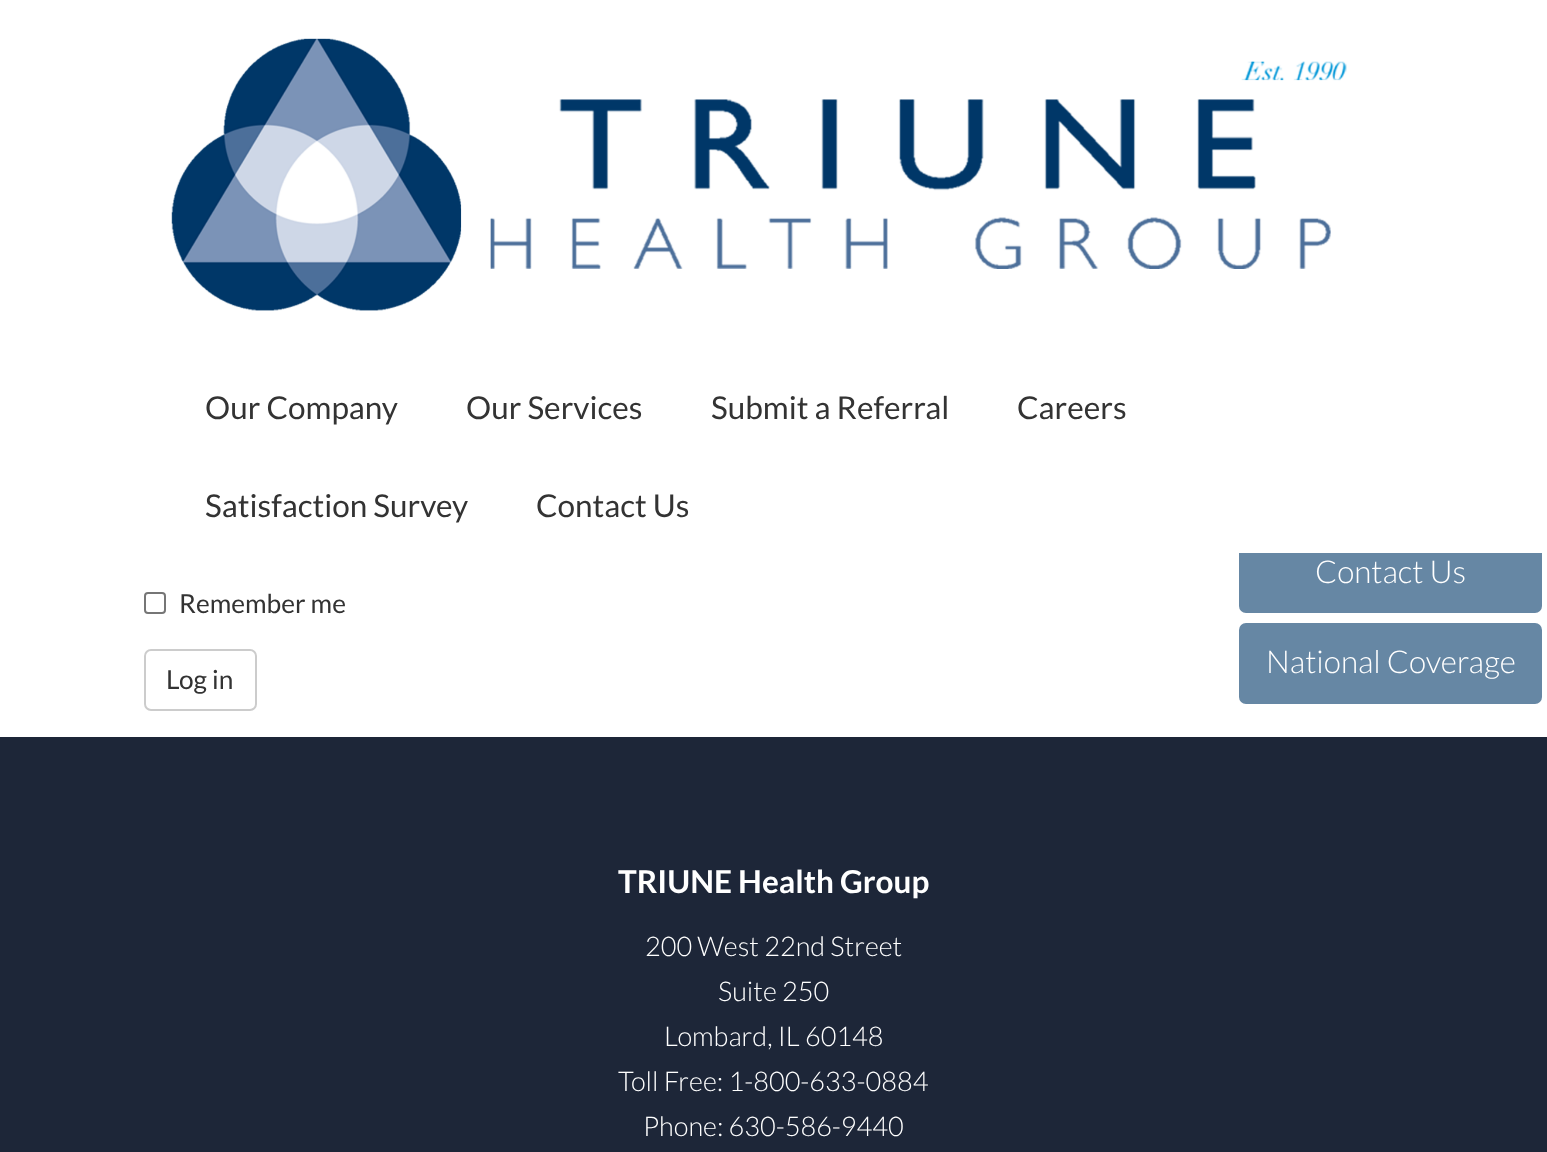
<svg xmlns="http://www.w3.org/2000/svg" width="1547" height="1152">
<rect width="100%" height="100%" fill="#1d2638"/>
<rect y="553" width="1547" height="184" fill="#fff"/>
<rect x="1239" y="532" width="303" height="81" rx="7" fill="#6687a4"/>
<rect width="1547" height="553" fill="#fff"/>
<image x="171" y="38" width="1176" height="273" href="media/1.png"/>
<text x="205" y="419" style="font-family:Lato;font-size:31.5px;fill:#333">Our Company</text>
<text x="466" y="419" style="font-family:Lato;font-size:31.5px;fill:#333">Our Services</text>
<text x="711" y="419" style="font-family:Lato;font-size:31.5px;fill:#333">Submit a Referral</text>
<text x="1017" y="419" style="font-family:Lato;font-size:31.5px;fill:#333">Careers</text>
<text x="205" y="517" style="font-family:Lato;font-size:31.5px;fill:#333">Satisfaction Survey</text>
<text x="536" y="517" style="font-family:Lato;font-size:31.5px;fill:#333">Contact Us</text>
<rect x="145" y="593" width="20" height="20" rx="3" fill="none" stroke="#767676" stroke-width="2"/>
<text x="179" y="613" style="font-family:Lato;font-size:26.25px;fill:#333">Remember me</text>
<rect x="145" y="650" width="111" height="60" rx="6" fill="none" stroke="#ccc" stroke-width="2"/>
<text x="166" y="689" style="font-family:Lato;font-size:26.25px;fill:#333">Log in</text>
<text x="1315" y="583" style="font-family:Lato;font-size:31.5px;font-weight:300;fill:#fff">Contact Us</text>
<rect x="1239" y="623" width="303" height="81" rx="7" fill="#6687a4"/>
<text x="1266" y="673" style="font-family:Lato;font-size:31.5px;font-weight:300;fill:#fff">National Coverage</text>
<text x="618" y="893" style="font-family:Lato;font-size:31.5px;font-weight:bold;fill:#fff">TRIUNE Health Group</text>
<text x="645" y="956" style="font-family:Lato;font-size:27.1px;font-weight:300;fill:#fff">200 West 22nd Street</text>
<text x="718" y="1001" style="font-family:Lato;font-size:27.1px;font-weight:300;fill:#fff">Suite 250</text>
<text x="664" y="1046" style="font-family:Lato;font-size:27.1px;font-weight:300;fill:#fff">Lombard, IL 60148</text>
<text x="618" y="1091" style="font-family:Lato;font-size:27.1px;font-weight:300;fill:#fff">Toll Free: 1-800-633-0884</text>
<text x="643" y="1136" style="font-family:Lato;font-size:27.1px;font-weight:300;fill:#fff">Phone: 630-586-9440</text>
</svg>
